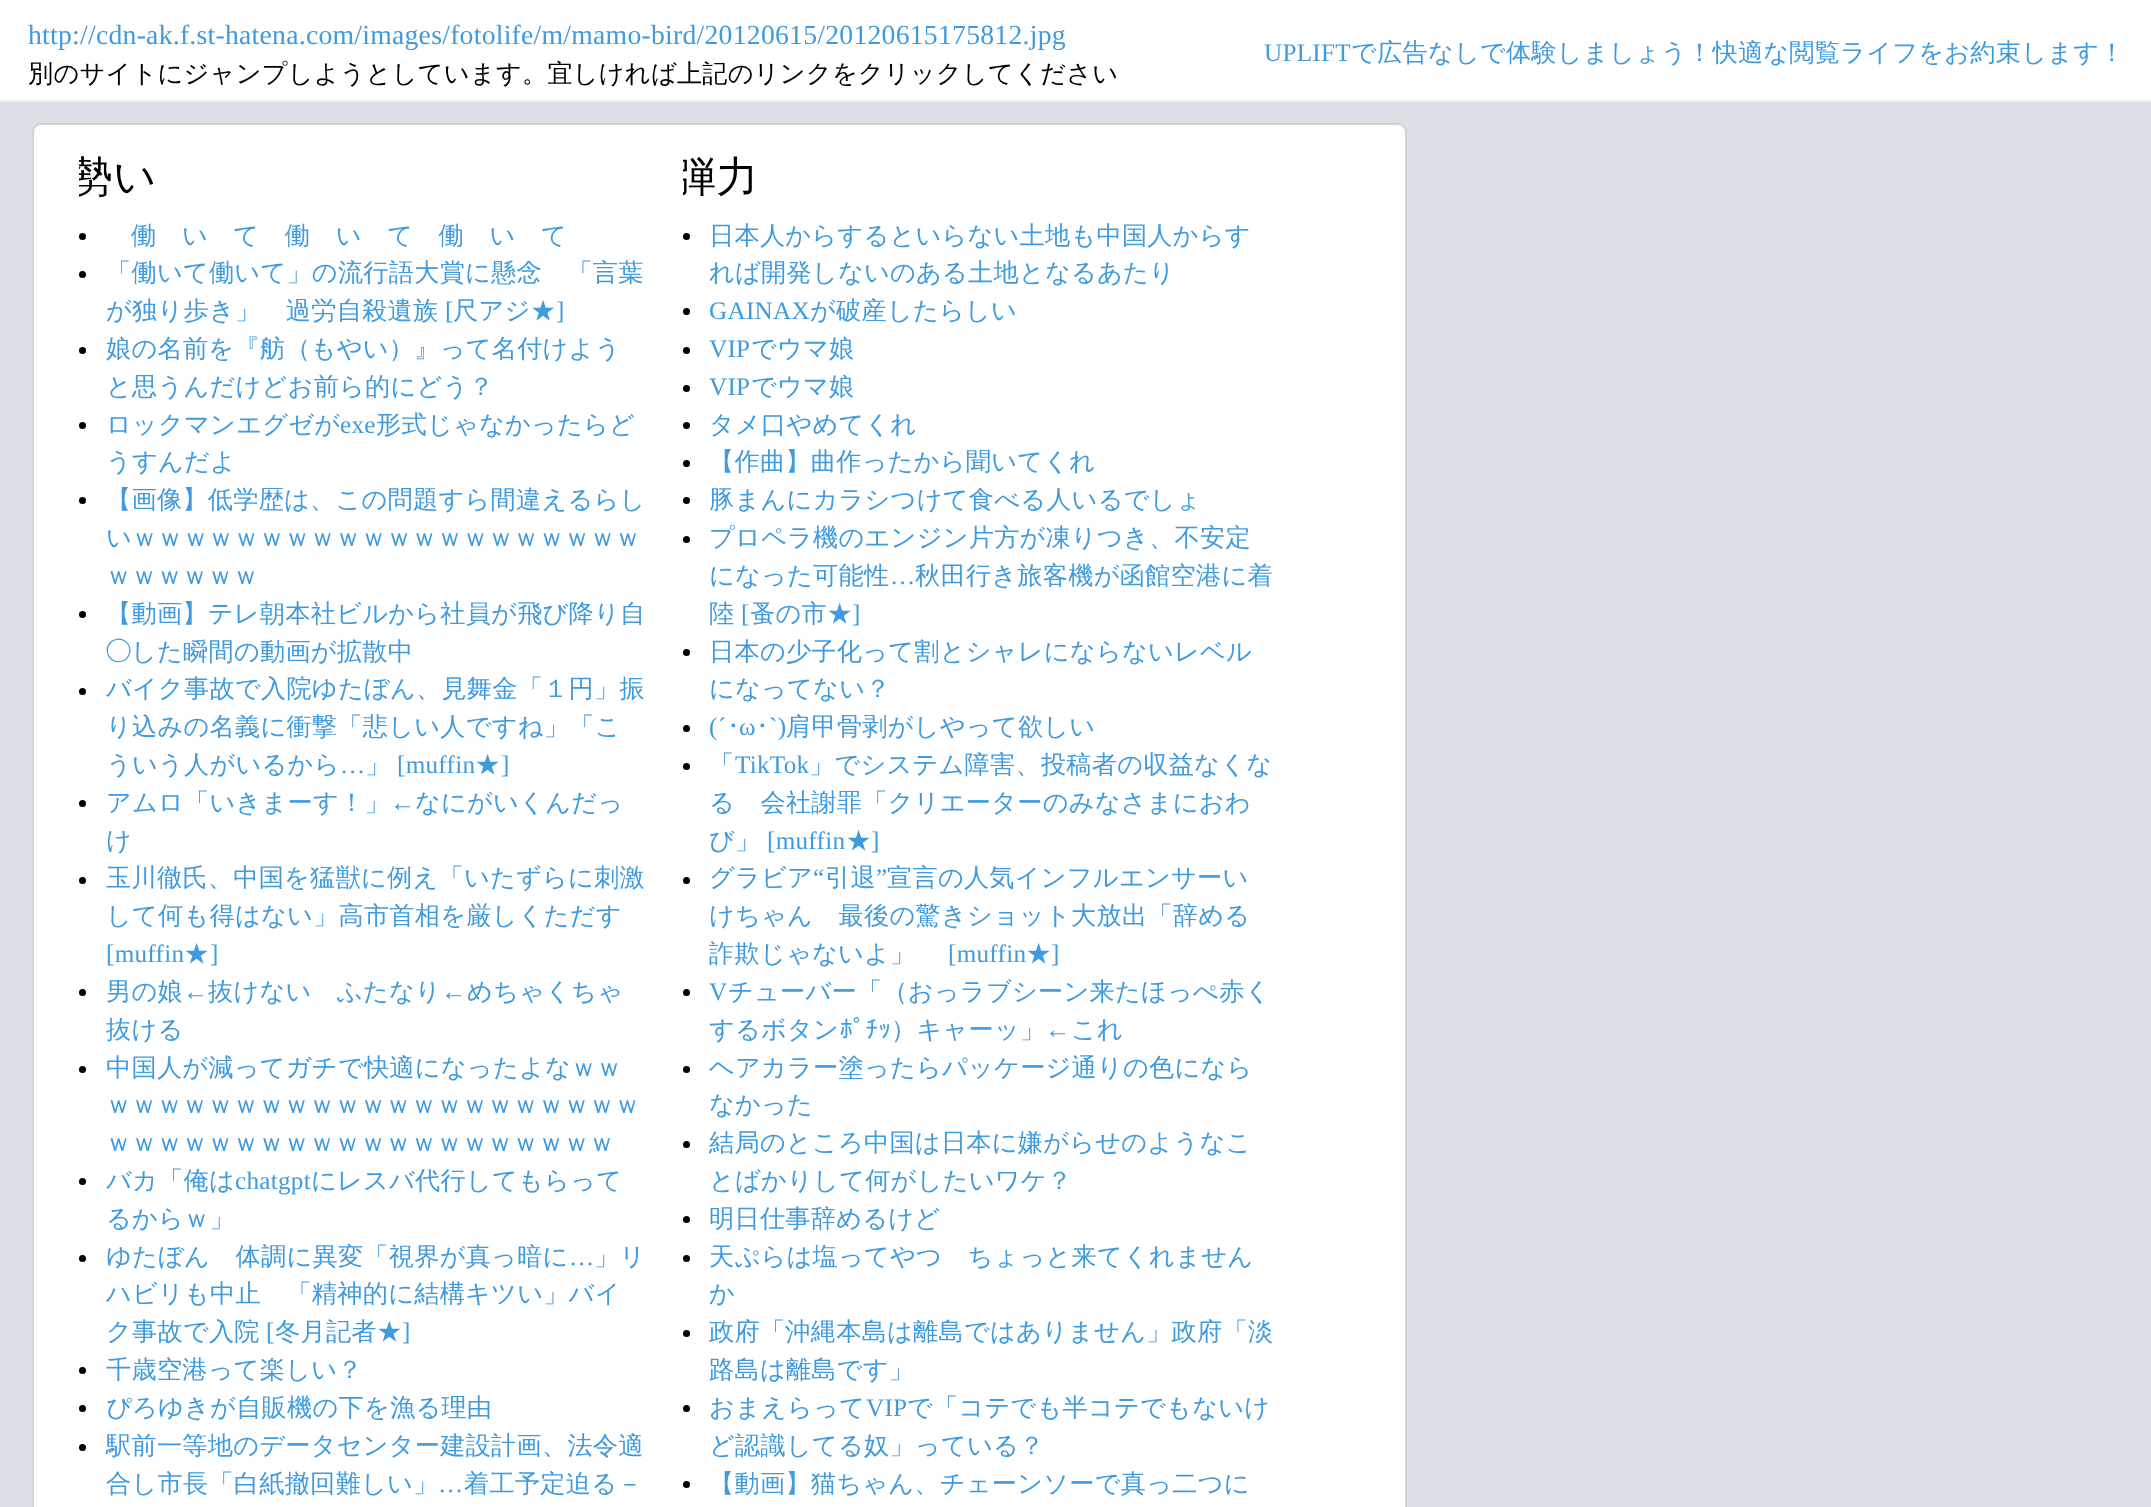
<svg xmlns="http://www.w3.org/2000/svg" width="2151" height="1507">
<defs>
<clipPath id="clip1"><rect x="79" y="100" width="567" height="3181"/></clipPath>
<clipPath id="clip2"><rect x="683" y="100" width="591" height="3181"/></clipPath>
</defs>
<rect width="100%" height="100%" fill="#dae0e6"/>
<rect width="2151" height="100" fill="#fff"/>
<rect y="100" width="2151" height="2" fill="#edeff1"/>
<text x="28" y="44" style="font-family:Liberation Serif;font-size:27.7px;letter-spacing:0.25px;fill:#3f9ade">http://cdn-ak.f.st-hatena.com/images/fotolife/m/mamo-bird/20120615/20120615175812.jpg</text>
<text x="28" y="82" style="font-family:WenQuanYi Zen Hei;font-size:25.2px;font-weight:500;letter-spacing:0.25px;fill:#000">別のサイトにジャンプしようとしています。宜しければ上記のリンクをクリックしてください</text>
<text x="1264" y="61" style="font-family:Liberation Serif;font-size:25.2px;letter-spacing:0.25px;fill:#3f9ade">UPLIFT</text>
<text x="1351" y="61" style="font-family:WenQuanYi Zen Hei;font-size:25.2px;font-weight:500;letter-spacing:0.25px;fill:#3f9ade">で広告なしで体験しましょう！快適な閲覧ライフをお約束します！</text>
<rect x="33" y="124" width="1373" height="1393" rx="8" fill="#fff" stroke="#d3d3d3" stroke-width="2"/>
<g clip-path="url(#clip1)">
<text x="71" y="191" style="font-family:WenQuanYi Zen Hei;font-size:42px;font-weight:500;letter-spacing:0.25px;fill:#000">勢い</text>
</g>
<circle cx="82.5" cy="236.5" r="3.5" fill="#000"/>
<text x="131" y="244" style="font-family:WenQuanYi Zen Hei;font-size:25.2px;font-weight:500;letter-spacing:0.25px;fill:#3f9ade">働　い　て　働　い　て　働　い　て</text>
<circle cx="82.5" cy="274.5" r="3.5" fill="#000"/>
<text x="106" y="281" style="font-family:WenQuanYi Zen Hei;font-size:25.2px;font-weight:500;letter-spacing:0.25px;fill:#3f9ade">「働いて働いて」の流行語大賞に懸念　「言葉</text>
<text x="106" y="319" style="font-family:WenQuanYi Zen Hei;font-size:25.2px;font-weight:500;letter-spacing:0.25px;fill:#3f9ade">が独り歩き」　過労自殺遺族</text>
<text x="445" y="319" style="font-family:Liberation Serif;font-size:25.2px;letter-spacing:0.25px;fill:#3f9ade">[</text>
<text x="453" y="319" style="font-family:WenQuanYi Zen Hei;font-size:25.2px;font-weight:500;letter-spacing:0.25px;fill:#3f9ade">尺アジ★</text>
<text x="556" y="319" style="font-family:Liberation Serif;font-size:25.2px;letter-spacing:0.25px;fill:#3f9ade">]</text>
<circle cx="82.5" cy="350.5" r="3.5" fill="#000"/>
<text x="106" y="357" style="font-family:WenQuanYi Zen Hei;font-size:25.2px;font-weight:500;letter-spacing:0.25px;fill:#3f9ade">娘の名前を『舫（もやい）』って名付けよう</text>
<text x="106" y="395" style="font-family:WenQuanYi Zen Hei;font-size:25.2px;font-weight:500;letter-spacing:0.25px;fill:#3f9ade">と思うんだけどお前ら的にどう？</text>
<circle cx="82.5" cy="425.5" r="3.5" fill="#000"/>
<text x="106" y="433" style="font-family:WenQuanYi Zen Hei;font-size:25.2px;font-weight:500;letter-spacing:0.25px;fill:#3f9ade">ロックマンエグゼが</text>
<text x="340" y="433" style="font-family:Liberation Serif;font-size:25.2px;letter-spacing:0.25px;fill:#3f9ade">exe</text>
<text x="376" y="433" style="font-family:WenQuanYi Zen Hei;font-size:25.2px;font-weight:500;letter-spacing:0.25px;fill:#3f9ade">形式じゃなかったらど</text>
<text x="106" y="470" style="font-family:WenQuanYi Zen Hei;font-size:25.2px;font-weight:500;letter-spacing:0.25px;fill:#3f9ade">うすんだよ</text>
<circle cx="82.5" cy="500.5" r="3.5" fill="#000"/>
<text x="106" y="508" style="font-family:WenQuanYi Zen Hei;font-size:25.2px;font-weight:500;letter-spacing:0.25px;fill:#3f9ade">【画像】低学歴は、この問題すら間違えるらし</text>
<text x="106" y="546" style="font-family:WenQuanYi Zen Hei;font-size:25.2px;font-weight:500;letter-spacing:0.25px;fill:#3f9ade">いｗｗｗｗｗｗｗｗｗｗｗｗｗｗｗｗｗｗｗｗ</text>
<text x="106" y="584" style="font-family:WenQuanYi Zen Hei;font-size:25.2px;font-weight:500;letter-spacing:0.25px;fill:#3f9ade">ｗｗｗｗｗｗ</text>
<circle cx="82.5" cy="614.5" r="3.5" fill="#000"/>
<text x="106" y="622" style="font-family:WenQuanYi Zen Hei;font-size:25.2px;font-weight:500;letter-spacing:0.25px;fill:#3f9ade">【動画】テレ朝本社ビルから社員が飛び降り自</text>
<text x="106" y="660" style="font-family:IPAPGothic;font-size:25.2px;letter-spacing:0.25px;fill:#3f9ade">◯</text>
<text x="131" y="660" style="font-family:WenQuanYi Zen Hei;font-size:25.2px;font-weight:500;letter-spacing:0.25px;fill:#3f9ade">した瞬間の動画が拡散中</text>
<circle cx="82.5" cy="691.5" r="3.5" fill="#000"/>
<text x="106" y="697" style="font-family:WenQuanYi Zen Hei;font-size:25.2px;font-weight:500;letter-spacing:0.25px;fill:#3f9ade">バイク事故で入院ゆたぼん、見舞金「１円」振</text>
<text x="106" y="735" style="font-family:WenQuanYi Zen Hei;font-size:25.2px;font-weight:500;letter-spacing:0.25px;fill:#3f9ade">り込みの名義に衝撃「悲しい人ですね」「こ</text>
<text x="106" y="773" style="font-family:WenQuanYi Zen Hei;font-size:25.2px;font-weight:500;letter-spacing:0.25px;fill:#3f9ade">ういう人がいるから</text>
<text x="340" y="773" style="font-family:Liberation Serif;font-size:25.2px;letter-spacing:0.25px;fill:#3f9ade">…</text>
<text x="365" y="773" style="font-family:WenQuanYi Zen Hei;font-size:25.2px;font-weight:500;letter-spacing:0.25px;fill:#3f9ade">」</text>
<text x="397" y="773" style="font-family:Liberation Serif;font-size:25.2px;letter-spacing:0.25px;fill:#3f9ade">[muffin</text>
<text x="475" y="773" style="font-family:WenQuanYi Zen Hei;font-size:25.2px;font-weight:500;letter-spacing:0.25px;fill:#3f9ade">★</text>
<text x="501" y="773" style="font-family:Liberation Serif;font-size:25.2px;letter-spacing:0.25px;fill:#3f9ade">]</text>
<circle cx="82.5" cy="803.5" r="3.5" fill="#000"/>
<text x="106" y="811" style="font-family:WenQuanYi Zen Hei;font-size:25.2px;font-weight:500;letter-spacing:0.25px;fill:#3f9ade">アムロ「いきまーす！」</text>
<text x="390" y="811" style="font-family:Liberation Serif;font-size:25.2px;letter-spacing:0.25px;fill:#3f9ade">←</text>
<text x="415" y="811" style="font-family:WenQuanYi Zen Hei;font-size:25.2px;font-weight:500;letter-spacing:0.25px;fill:#3f9ade">なにがいくんだっ</text>
<text x="106" y="849" style="font-family:WenQuanYi Zen Hei;font-size:25.2px;font-weight:500;letter-spacing:0.25px;fill:#3f9ade">け</text>
<circle cx="82.5" cy="880.5" r="3.5" fill="#000"/>
<text x="106" y="886" style="font-family:WenQuanYi Zen Hei;font-size:25.2px;font-weight:500;letter-spacing:0.25px;fill:#3f9ade">玉川徹氏、中国を猛獣に例え「いたずらに刺激</text>
<text x="106" y="924" style="font-family:WenQuanYi Zen Hei;font-size:25.2px;font-weight:500;letter-spacing:0.25px;fill:#3f9ade">して何も得はない」高市首相を厳しくただす</text>
<text x="106" y="962" style="font-family:Liberation Serif;font-size:25.2px;letter-spacing:0.25px;fill:#3f9ade">[muffin</text>
<text x="184" y="962" style="font-family:WenQuanYi Zen Hei;font-size:25.2px;font-weight:500;letter-spacing:0.25px;fill:#3f9ade">★</text>
<text x="210" y="962" style="font-family:Liberation Serif;font-size:25.2px;letter-spacing:0.25px;fill:#3f9ade">]</text>
<circle cx="82.5" cy="992.5" r="3.5" fill="#000"/>
<text x="106" y="1000" style="font-family:WenQuanYi Zen Hei;font-size:25.2px;font-weight:500;letter-spacing:0.25px;fill:#3f9ade">男の娘</text>
<text x="183" y="1000" style="font-family:Liberation Serif;font-size:25.2px;letter-spacing:0.25px;fill:#3f9ade">←</text>
<text x="208" y="1000" style="font-family:WenQuanYi Zen Hei;font-size:25.2px;font-weight:500;letter-spacing:0.25px;fill:#3f9ade">抜けない　ふたなり</text>
<text x="441" y="1000" style="font-family:Liberation Serif;font-size:25.2px;letter-spacing:0.25px;fill:#3f9ade">←</text>
<text x="467" y="1000" style="font-family:WenQuanYi Zen Hei;font-size:25.2px;font-weight:500;letter-spacing:0.25px;fill:#3f9ade">めちゃくちゃ</text>
<text x="106" y="1038" style="font-family:WenQuanYi Zen Hei;font-size:25.2px;font-weight:500;letter-spacing:0.25px;fill:#3f9ade">抜ける</text>
<circle cx="82.5" cy="1069.5" r="3.5" fill="#000"/>
<text x="106" y="1076" style="font-family:WenQuanYi Zen Hei;font-size:25.2px;font-weight:500;letter-spacing:0.25px;fill:#3f9ade">中国人が減ってガチで快適になったよなｗｗ</text>
<text x="106" y="1113" style="font-family:WenQuanYi Zen Hei;font-size:25.2px;font-weight:500;letter-spacing:0.25px;fill:#3f9ade">ｗｗｗｗｗｗｗｗｗｗｗｗｗｗｗｗｗｗｗｗｗ</text>
<text x="106" y="1151" style="font-family:WenQuanYi Zen Hei;font-size:25.2px;font-weight:500;letter-spacing:0.25px;fill:#3f9ade">ｗｗｗｗｗｗｗｗｗｗｗｗｗｗｗｗｗｗｗｗ</text>
<circle cx="82.5" cy="1181.5" r="3.5" fill="#000"/>
<text x="106" y="1189" style="font-family:WenQuanYi Zen Hei;font-size:25.2px;font-weight:500;letter-spacing:0.25px;fill:#3f9ade">バカ「俺は</text>
<text x="235" y="1189" style="font-family:Liberation Serif;font-size:25.2px;letter-spacing:0.25px;fill:#3f9ade">chatgpt</text>
<text x="311" y="1189" style="font-family:WenQuanYi Zen Hei;font-size:25.2px;font-weight:500;letter-spacing:0.25px;fill:#3f9ade">にレスバ代行してもらって</text>
<text x="106" y="1227" style="font-family:WenQuanYi Zen Hei;font-size:25.2px;font-weight:500;letter-spacing:0.25px;fill:#3f9ade">るからｗ」</text>
<circle cx="82.5" cy="1258.5" r="3.5" fill="#000"/>
<text x="106" y="1265" style="font-family:WenQuanYi Zen Hei;font-size:25.2px;font-weight:500;letter-spacing:0.25px;fill:#3f9ade">ゆたぼん　体調に異変「視界が真っ暗に</text>
<text x="594" y="1265" style="font-family:WenQuanYi Zen Hei;font-size:25.2px;font-weight:500;letter-spacing:0.25px;fill:#3f9ade">」リ</text>
<text x="569" y="1265" style="font-family:Liberation Serif;font-size:25.2px;letter-spacing:0.25px;fill:#3f9ade">…</text>
<text x="106" y="1302" style="font-family:WenQuanYi Zen Hei;font-size:25.2px;font-weight:500;letter-spacing:0.25px;fill:#3f9ade">ハビリも中止　「精神的に結構キツい」バイ</text>
<text x="106" y="1340" style="font-family:WenQuanYi Zen Hei;font-size:25.2px;font-weight:500;letter-spacing:0.25px;fill:#3f9ade">ク事故で入院</text>
<text x="266" y="1340" style="font-family:Liberation Serif;font-size:25.2px;letter-spacing:0.25px;fill:#3f9ade">[</text>
<text x="275" y="1340" style="font-family:WenQuanYi Zen Hei;font-size:25.2px;font-weight:500;letter-spacing:0.25px;fill:#3f9ade">冬月記者★</text>
<text x="402" y="1340" style="font-family:Liberation Serif;font-size:25.2px;letter-spacing:0.25px;fill:#3f9ade">]</text>
<circle cx="82.5" cy="1370.5" r="3.5" fill="#000"/>
<text x="106" y="1378" style="font-family:WenQuanYi Zen Hei;font-size:25.2px;font-weight:500;letter-spacing:0.25px;fill:#3f9ade">千歳空港って楽しい？</text>
<circle cx="82.5" cy="1408.5" r="3.5" fill="#000"/>
<text x="106" y="1416" style="font-family:WenQuanYi Zen Hei;font-size:25.2px;font-weight:500;letter-spacing:0.25px;fill:#3f9ade">ぴろゆきが自販機の下を漁る理由</text>
<circle cx="82.5" cy="1447.5" r="3.5" fill="#000"/>
<text x="106" y="1454" style="font-family:WenQuanYi Zen Hei;font-size:25.2px;font-weight:500;letter-spacing:0.25px;fill:#3f9ade">駅前一等地のデータセンター建設計画、法令適</text>
<text x="106" y="1492" style="font-family:WenQuanYi Zen Hei;font-size:25.2px;font-weight:500;letter-spacing:0.25px;fill:#3f9ade">合し市長「白紙撤回難しい」</text>
<text x="438" y="1492" style="font-family:Liberation Serif;font-size:25.2px;letter-spacing:0.25px;fill:#3f9ade">…</text>
<text x="464" y="1492" style="font-family:WenQuanYi Zen Hei;font-size:25.2px;font-weight:500;letter-spacing:0.25px;fill:#3f9ade">着工予定迫る－</text>
<g clip-path="url(#clip2)">
<text x="674" y="191" style="font-family:WenQuanYi Zen Hei;font-size:42px;font-weight:500;letter-spacing:0.25px;fill:#000">弾力</text>
</g>
<circle cx="686.5" cy="236.5" r="3.5" fill="#000"/>
<text x="709" y="244" style="font-family:WenQuanYi Zen Hei;font-size:25.2px;font-weight:500;letter-spacing:0.25px;fill:#3f9ade">日本人からするといらない土地も中国人からす</text>
<text x="709" y="281" style="font-family:WenQuanYi Zen Hei;font-size:25.2px;font-weight:500;letter-spacing:0.25px;fill:#3f9ade">れば開発しないのある土地となるあたり</text>
<circle cx="686.5" cy="311.5" r="3.5" fill="#000"/>
<text x="709" y="319" style="font-family:Liberation Serif;font-size:25.2px;letter-spacing:0.25px;fill:#3f9ade">GAINAX</text>
<text x="810" y="319" style="font-family:WenQuanYi Zen Hei;font-size:25.2px;font-weight:500;letter-spacing:0.25px;fill:#3f9ade">が破産したらしい</text>
<circle cx="686.5" cy="350.5" r="3.5" fill="#000"/>
<text x="709" y="357" style="font-family:Liberation Serif;font-size:25.2px;letter-spacing:0.25px;fill:#3f9ade">VIP</text>
<text x="751" y="357" style="font-family:WenQuanYi Zen Hei;font-size:25.2px;font-weight:500;letter-spacing:0.25px;fill:#3f9ade">でウマ娘</text>
<circle cx="686.5" cy="388.5" r="3.5" fill="#000"/>
<text x="709" y="395" style="font-family:Liberation Serif;font-size:25.2px;letter-spacing:0.25px;fill:#3f9ade">VIP</text>
<text x="751" y="395" style="font-family:WenQuanYi Zen Hei;font-size:25.2px;font-weight:500;letter-spacing:0.25px;fill:#3f9ade">でウマ娘</text>
<circle cx="686.5" cy="425.5" r="3.5" fill="#000"/>
<text x="709" y="433" style="font-family:WenQuanYi Zen Hei;font-size:25.2px;font-weight:500;letter-spacing:0.25px;fill:#3f9ade">タメ口やめてくれ</text>
<circle cx="686.5" cy="463.5" r="3.5" fill="#000"/>
<text x="709" y="470" style="font-family:WenQuanYi Zen Hei;font-size:25.2px;font-weight:500;letter-spacing:0.25px;fill:#3f9ade">【作曲】曲作ったから聞いてくれ</text>
<circle cx="686.5" cy="500.5" r="3.5" fill="#000"/>
<text x="709" y="508" style="font-family:WenQuanYi Zen Hei;font-size:25.2px;font-weight:500;letter-spacing:0.25px;fill:#3f9ade">豚まんにカラシつけて食べる人いるでしょ</text>
<circle cx="686.5" cy="539.5" r="3.5" fill="#000"/>
<text x="709" y="546" style="font-family:WenQuanYi Zen Hei;font-size:25.2px;font-weight:500;letter-spacing:0.25px;fill:#3f9ade">プロペラ機のエンジン片方が凍りつき、不安定</text>
<text x="709" y="584" style="font-family:WenQuanYi Zen Hei;font-size:25.2px;font-weight:500;letter-spacing:0.25px;fill:#3f9ade">になった可能性</text>
<text x="890" y="584" style="font-family:Liberation Serif;font-size:25.2px;letter-spacing:0.25px;fill:#3f9ade">…</text>
<text x="915" y="584" style="font-family:WenQuanYi Zen Hei;font-size:25.2px;font-weight:500;letter-spacing:0.25px;fill:#3f9ade">秋田行き旅客機が函館空港に着</text>
<text x="709" y="622" style="font-family:WenQuanYi Zen Hei;font-size:25.2px;font-weight:500;letter-spacing:0.25px;fill:#3f9ade">陸</text>
<text x="741" y="622" style="font-family:Liberation Serif;font-size:25.2px;letter-spacing:0.25px;fill:#3f9ade">[</text>
<text x="750" y="622" style="font-family:WenQuanYi Zen Hei;font-size:25.2px;font-weight:500;letter-spacing:0.25px;fill:#3f9ade">蚤の市★</text>
<text x="852" y="622" style="font-family:Liberation Serif;font-size:25.2px;letter-spacing:0.25px;fill:#3f9ade">]</text>
<circle cx="686.5" cy="652.5" r="3.5" fill="#000"/>
<text x="709" y="660" style="font-family:WenQuanYi Zen Hei;font-size:25.2px;font-weight:500;letter-spacing:0.25px;fill:#3f9ade">日本の少子化って割とシャレにならないレベル</text>
<text x="709" y="697" style="font-family:WenQuanYi Zen Hei;font-size:25.2px;font-weight:500;letter-spacing:0.25px;fill:#3f9ade">になってない？</text>
<circle cx="686.5" cy="728.5" r="3.5" fill="#000"/>
<text x="709" y="735" style="font-family:Liberation Serif;font-size:25.2px;letter-spacing:0.25px;fill:#3f9ade">(´</text>
<text x="727" y="735" style="font-family:IPAPGothic;font-size:25.2px;letter-spacing:0.25px;fill:#3f9ade">･</text>
<text x="739" y="735" style="font-family:Liberation Serif;font-size:25.2px;letter-spacing:0.25px;fill:#3f9ade">ω</text>
<text x="756" y="735" style="font-family:IPAPGothic;font-size:25.2px;letter-spacing:0.25px;fill:#3f9ade">･</text>
<text x="769" y="735" style="font-family:Liberation Serif;font-size:25.2px;letter-spacing:0.25px;fill:#3f9ade">`)</text>
<text x="786" y="735" style="font-family:WenQuanYi Zen Hei;font-size:25.2px;font-weight:500;letter-spacing:0.25px;fill:#3f9ade">肩甲骨剥がしやって欲しい</text>
<circle cx="686.5" cy="766.5" r="3.5" fill="#000"/>
<text x="709" y="773" style="font-family:WenQuanYi Zen Hei;font-size:25.2px;font-weight:500;letter-spacing:0.25px;fill:#3f9ade">「</text>
<text x="735" y="773" style="font-family:Liberation Serif;font-size:25.2px;letter-spacing:0.25px;fill:#3f9ade">TikTok</text>
<text x="809" y="773" style="font-family:WenQuanYi Zen Hei;font-size:25.2px;font-weight:500;letter-spacing:0.25px;fill:#3f9ade">」でシステム障害、投稿者の収益なくな</text>
<text x="709" y="811" style="font-family:WenQuanYi Zen Hei;font-size:25.2px;font-weight:500;letter-spacing:0.25px;fill:#3f9ade">る　会社謝罪「クリエーターのみなさまにおわ</text>
<text x="709" y="849" style="font-family:WenQuanYi Zen Hei;font-size:25.2px;font-weight:500;letter-spacing:0.25px;fill:#3f9ade">び」</text>
<text x="767" y="849" style="font-family:Liberation Serif;font-size:25.2px;letter-spacing:0.25px;fill:#3f9ade">[muffin</text>
<text x="846" y="849" style="font-family:WenQuanYi Zen Hei;font-size:25.2px;font-weight:500;letter-spacing:0.25px;fill:#3f9ade">★</text>
<text x="871" y="849" style="font-family:Liberation Serif;font-size:25.2px;letter-spacing:0.25px;fill:#3f9ade">]</text>
<text x="709" y="886" style="font-family:WenQuanYi Zen Hei;font-size:25.2px;font-weight:500;letter-spacing:0.25px;fill:#3f9ade">グラビア</text>
<text x="813" y="886" style="font-family:Liberation Serif;font-size:25.2px;letter-spacing:0.25px;fill:#3f9ade">“</text>
<text x="825" y="886" style="font-family:WenQuanYi Zen Hei;font-size:25.2px;font-weight:500;letter-spacing:0.25px;fill:#3f9ade">引退</text>
<text x="876" y="886" style="font-family:Liberation Serif;font-size:25.2px;letter-spacing:0.25px;fill:#3f9ade">”</text>
<text x="887" y="886" style="font-family:WenQuanYi Zen Hei;font-size:25.2px;font-weight:500;letter-spacing:0.25px;fill:#3f9ade">宣言の人気インフルエンサーい</text>
<circle cx="686.5" cy="880.5" r="3.5" fill="#000"/>
<text x="709" y="924" style="font-family:WenQuanYi Zen Hei;font-size:25.2px;font-weight:500;letter-spacing:0.25px;fill:#3f9ade">けちゃん　最後の驚きショット大放出「辞める</text>
<text x="709" y="962" style="font-family:WenQuanYi Zen Hei;font-size:25.2px;font-weight:500;letter-spacing:0.25px;fill:#3f9ade">詐欺じゃないよ」</text>
<text x="948" y="962" style="font-family:Liberation Serif;font-size:25.2px;letter-spacing:0.25px;fill:#3f9ade">[muffin</text>
<text x="1026" y="962" style="font-family:WenQuanYi Zen Hei;font-size:25.2px;font-weight:500;letter-spacing:0.25px;fill:#3f9ade">★</text>
<text x="1051" y="962" style="font-family:Liberation Serif;font-size:25.2px;letter-spacing:0.25px;fill:#3f9ade">]</text>
<circle cx="686.5" cy="992.5" r="3.5" fill="#000"/>
<text x="709" y="1000" style="font-family:Liberation Serif;font-size:25.2px;letter-spacing:0.25px;fill:#3f9ade">V</text>
<text x="728" y="1000" style="font-family:WenQuanYi Zen Hei;font-size:25.2px;font-weight:500;letter-spacing:0.25px;fill:#3f9ade">チューバー「（おっラブシーン来たほっぺ赤く</text>
<text x="709" y="1038" style="font-family:WenQuanYi Zen Hei;font-size:25.2px;font-weight:500;letter-spacing:0.25px;fill:#3f9ade">するボタン</text>
<text x="840" y="1038" style="font-family:IPAPGothic;font-size:25.2px;letter-spacing:0.25px;fill:#3f9ade">ﾎﾟﾁｯ</text>
<text x="891" y="1038" style="font-family:WenQuanYi Zen Hei;font-size:25.2px;font-weight:500;letter-spacing:0.25px;fill:#3f9ade">）キャーッ」</text>
<text x="1045" y="1038" style="font-family:Liberation Serif;font-size:25.2px;letter-spacing:0.25px;fill:#3f9ade">←</text>
<text x="1071" y="1038" style="font-family:WenQuanYi Zen Hei;font-size:25.2px;font-weight:500;letter-spacing:0.25px;fill:#3f9ade">これ</text>
<circle cx="686.5" cy="1069.5" r="3.5" fill="#000"/>
<text x="709" y="1076" style="font-family:WenQuanYi Zen Hei;font-size:25.2px;font-weight:500;letter-spacing:0.25px;fill:#3f9ade">ヘアカラー塗ったらパッケージ通りの色になら</text>
<text x="709" y="1113" style="font-family:WenQuanYi Zen Hei;font-size:25.2px;font-weight:500;letter-spacing:0.25px;fill:#3f9ade">なかった</text>
<circle cx="686.5" cy="1144.5" r="3.5" fill="#000"/>
<text x="709" y="1151" style="font-family:WenQuanYi Zen Hei;font-size:25.2px;font-weight:500;letter-spacing:0.25px;fill:#3f9ade">結局のところ中国は日本に嫌がらせのようなこ</text>
<text x="709" y="1189" style="font-family:WenQuanYi Zen Hei;font-size:25.2px;font-weight:500;letter-spacing:0.25px;fill:#3f9ade">とばかりして何がしたいワケ？</text>
<circle cx="686.5" cy="1219.5" r="3.5" fill="#000"/>
<text x="709" y="1227" style="font-family:WenQuanYi Zen Hei;font-size:25.2px;font-weight:500;letter-spacing:0.25px;fill:#3f9ade">明日仕事辞めるけど</text>
<circle cx="686.5" cy="1258.5" r="3.5" fill="#000"/>
<text x="709" y="1265" style="font-family:WenQuanYi Zen Hei;font-size:25.2px;font-weight:500;letter-spacing:0.25px;fill:#3f9ade">天ぷらは塩ってやつ　ちょっと来てくれません</text>
<text x="709" y="1302" style="font-family:WenQuanYi Zen Hei;font-size:25.2px;font-weight:500;letter-spacing:0.25px;fill:#3f9ade">か</text>
<circle cx="686.5" cy="1333.5" r="3.5" fill="#000"/>
<text x="709" y="1340" style="font-family:WenQuanYi Zen Hei;font-size:25.2px;font-weight:500;letter-spacing:0.25px;fill:#3f9ade">政府「沖縄本島は離島ではありません」政府「淡</text>
<text x="709" y="1378" style="font-family:WenQuanYi Zen Hei;font-size:25.2px;font-weight:500;letter-spacing:0.25px;fill:#3f9ade">路島は離島です」</text>
<circle cx="686.5" cy="1408.5" r="3.5" fill="#000"/>
<text x="709" y="1416" style="font-family:WenQuanYi Zen Hei;font-size:25.2px;font-weight:500;letter-spacing:0.25px;fill:#3f9ade">おまえらって</text>
<text x="866" y="1416" style="font-family:Liberation Serif;font-size:25.2px;letter-spacing:0.25px;fill:#3f9ade">VIP</text>
<text x="907" y="1416" style="font-family:WenQuanYi Zen Hei;font-size:25.2px;font-weight:500;letter-spacing:0.25px;fill:#3f9ade">で「コテでも半コテでもないけ</text>
<text x="709" y="1454" style="font-family:WenQuanYi Zen Hei;font-size:25.2px;font-weight:500;letter-spacing:0.25px;fill:#3f9ade">ど認識してる奴」っている？</text>
<circle cx="686.5" cy="1484.5" r="3.5" fill="#000"/>
<text x="709" y="1492" style="font-family:WenQuanYi Zen Hei;font-size:25.2px;font-weight:500;letter-spacing:0.25px;fill:#3f9ade">【動画】猫ちゃん、チェーンソーで真っ二つに</text>
</svg>
